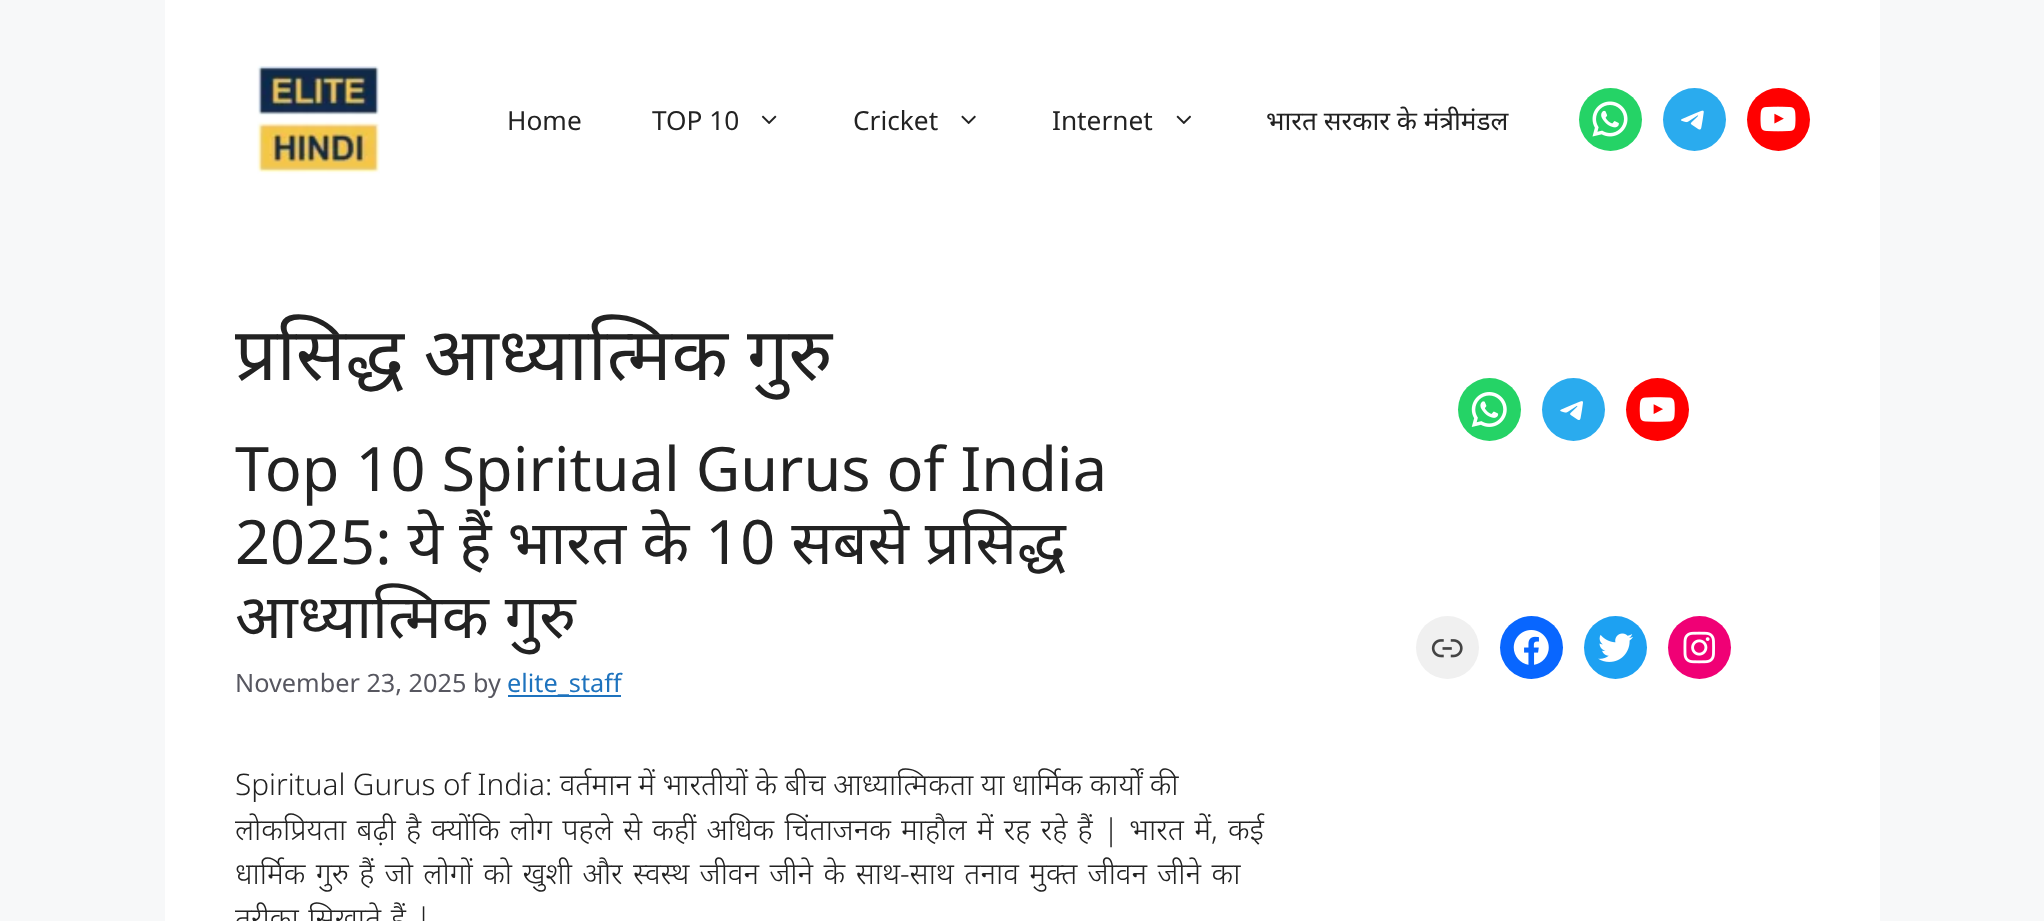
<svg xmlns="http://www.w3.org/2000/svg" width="2044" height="921">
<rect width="100%" height="100%" fill="#f7f8f9"/>
<rect x="165" width="1715" height="921" fill="#fff"/>
<image x="257" y="65" width="123" height="109" href="media/1.png"/>
<text x="507" y="130" style="font-family:Noto Sans;font-size:26.25px;fill:#222">Home</text>
<text x="652" y="130" style="font-family:Noto Sans;font-size:26.25px;fill:#222">TOP 10</text>
<image x="761" y="115" width="16" height="9" href="media/2.png"/>
<text x="853" y="130" style="font-family:Noto Sans;font-size:26.25px;fill:#222">Cricket</text>
<image x="961" y="115" width="15" height="10" href="media/3.png"/>
<text x="1052" y="130" style="font-family:Noto Sans;font-size:26.25px;fill:#222">Internet</text>
<image x="1176" y="115" width="15" height="9" href="media/4.png"/>
<text x="1266" y="130" style="font-family:Noto Sans;font-size:26.25px;fill:#222">भारत सरकार के मंत्रीमंडल</text>
<circle cx="1610.5" cy="119.5" r="31.5" fill="#25d366"/>
<image x="1592" y="101" width="36" height="36" href="media/5.png"/>
<circle cx="1694.5" cy="119.5" r="31.5" fill="#2aabee"/>
<image x="1681" y="110" width="23" height="20" href="media/6.png"/>
<circle cx="1778.5" cy="119.5" r="31.5" fill="#f00"/>
<image x="1760" y="106" width="36" height="26" href="media/7.png"/>
<text x="235" y="380" style="font-family:Noto Sans;font-size:73.5px;fill:#222">प्रसिद्ध आध्यात्मिक गुरु</text>
<text x="235" y="491" style="font-family:Noto Sans;font-size:61.25px;fill:#222">Top 10 Spiritual Gurus of India</text>
<text x="235" y="564" style="font-family:Noto Sans;font-size:61.25px;fill:#222">2025: ये हैं भारत के 10 सबसे प्रसिद्ध</text>
<text x="235" y="638" style="font-family:Noto Sans;font-size:61.25px;fill:#222">आध्यात्मिक गुरु</text>
<text x="235" y="692" style="font-family:Noto Sans;font-size:25.25px;fill:#575760">November 23, 2025 by</text>
<rect x="508" y="695" width="113" height="2" fill="#1e73be"/>
<text x="507" y="692" style="font-family:Noto Sans;font-size:25.25px;fill:#1e73be">elite_staff</text>
<text x="235" y="795" word-spacing="-0.25" style="font-family:Noto Sans;font-size:29.75px;font-weight:300;fill:#222">Spiritual Gurus of India: वर्तमान में भारतीयों के बीच आध्यात्मिकता या धार्मिक कार्यों की</text>
<text x="235" y="840" word-spacing="2.5" style="font-family:Noto Sans;font-size:29.75px;font-weight:300;fill:#222">लोकप्रियता बढ़ी है क्योंकि लोग पहले से कहीं अधिक चिंताजनक माहौल में रह रहे हैं | भारत में, कई</text>
<text x="235" y="884" word-spacing="2.75" style="font-family:Noto Sans;font-size:29.75px;font-weight:300;fill:#222">धार्मिक गुरु हैं जो लोगों को खुशी और स्वस्थ जीवन जीने के साथ-साथ तनाव मुक्त जीवन जीने का</text>
<text x="235" y="929" word-spacing="2" style="font-family:Noto Sans;font-size:29.75px;font-weight:300;fill:#222">तरीका सिखाते हैं |</text>
<circle cx="1489.5" cy="409.5" r="31.5" fill="#25d366"/>
<image x="1471" y="392" width="36" height="35" href="media/8.png"/>
<circle cx="1573.5" cy="409.5" r="31.5" fill="#2aabee"/>
<image x="1560" y="401" width="23" height="19" href="media/9.png"/>
<circle cx="1657.5" cy="409.5" r="31.5" fill="#f00"/>
<image x="1639" y="397" width="36" height="25" href="media/10.png"/>
<circle cx="1447.5" cy="647.5" r="31.5" fill="#f0f0f0"/>
<image x="1431" y="639" width="32" height="19" href="media/11.png"/>
<circle cx="1531.5" cy="647.5" r="31.5" fill="#0866ff"/>
<image x="1513" y="630" width="36" height="35" href="media/12.png"/>
<circle cx="1615.5" cy="647.5" r="31.5" fill="#1da1f2"/>
<image x="1598" y="633" width="35" height="29" href="media/13.png"/>
<circle cx="1699.5" cy="647.5" r="31.5" fill="#f00075"/>
<image x="1683" y="631" width="32" height="33" href="media/14.png"/>
</svg>
